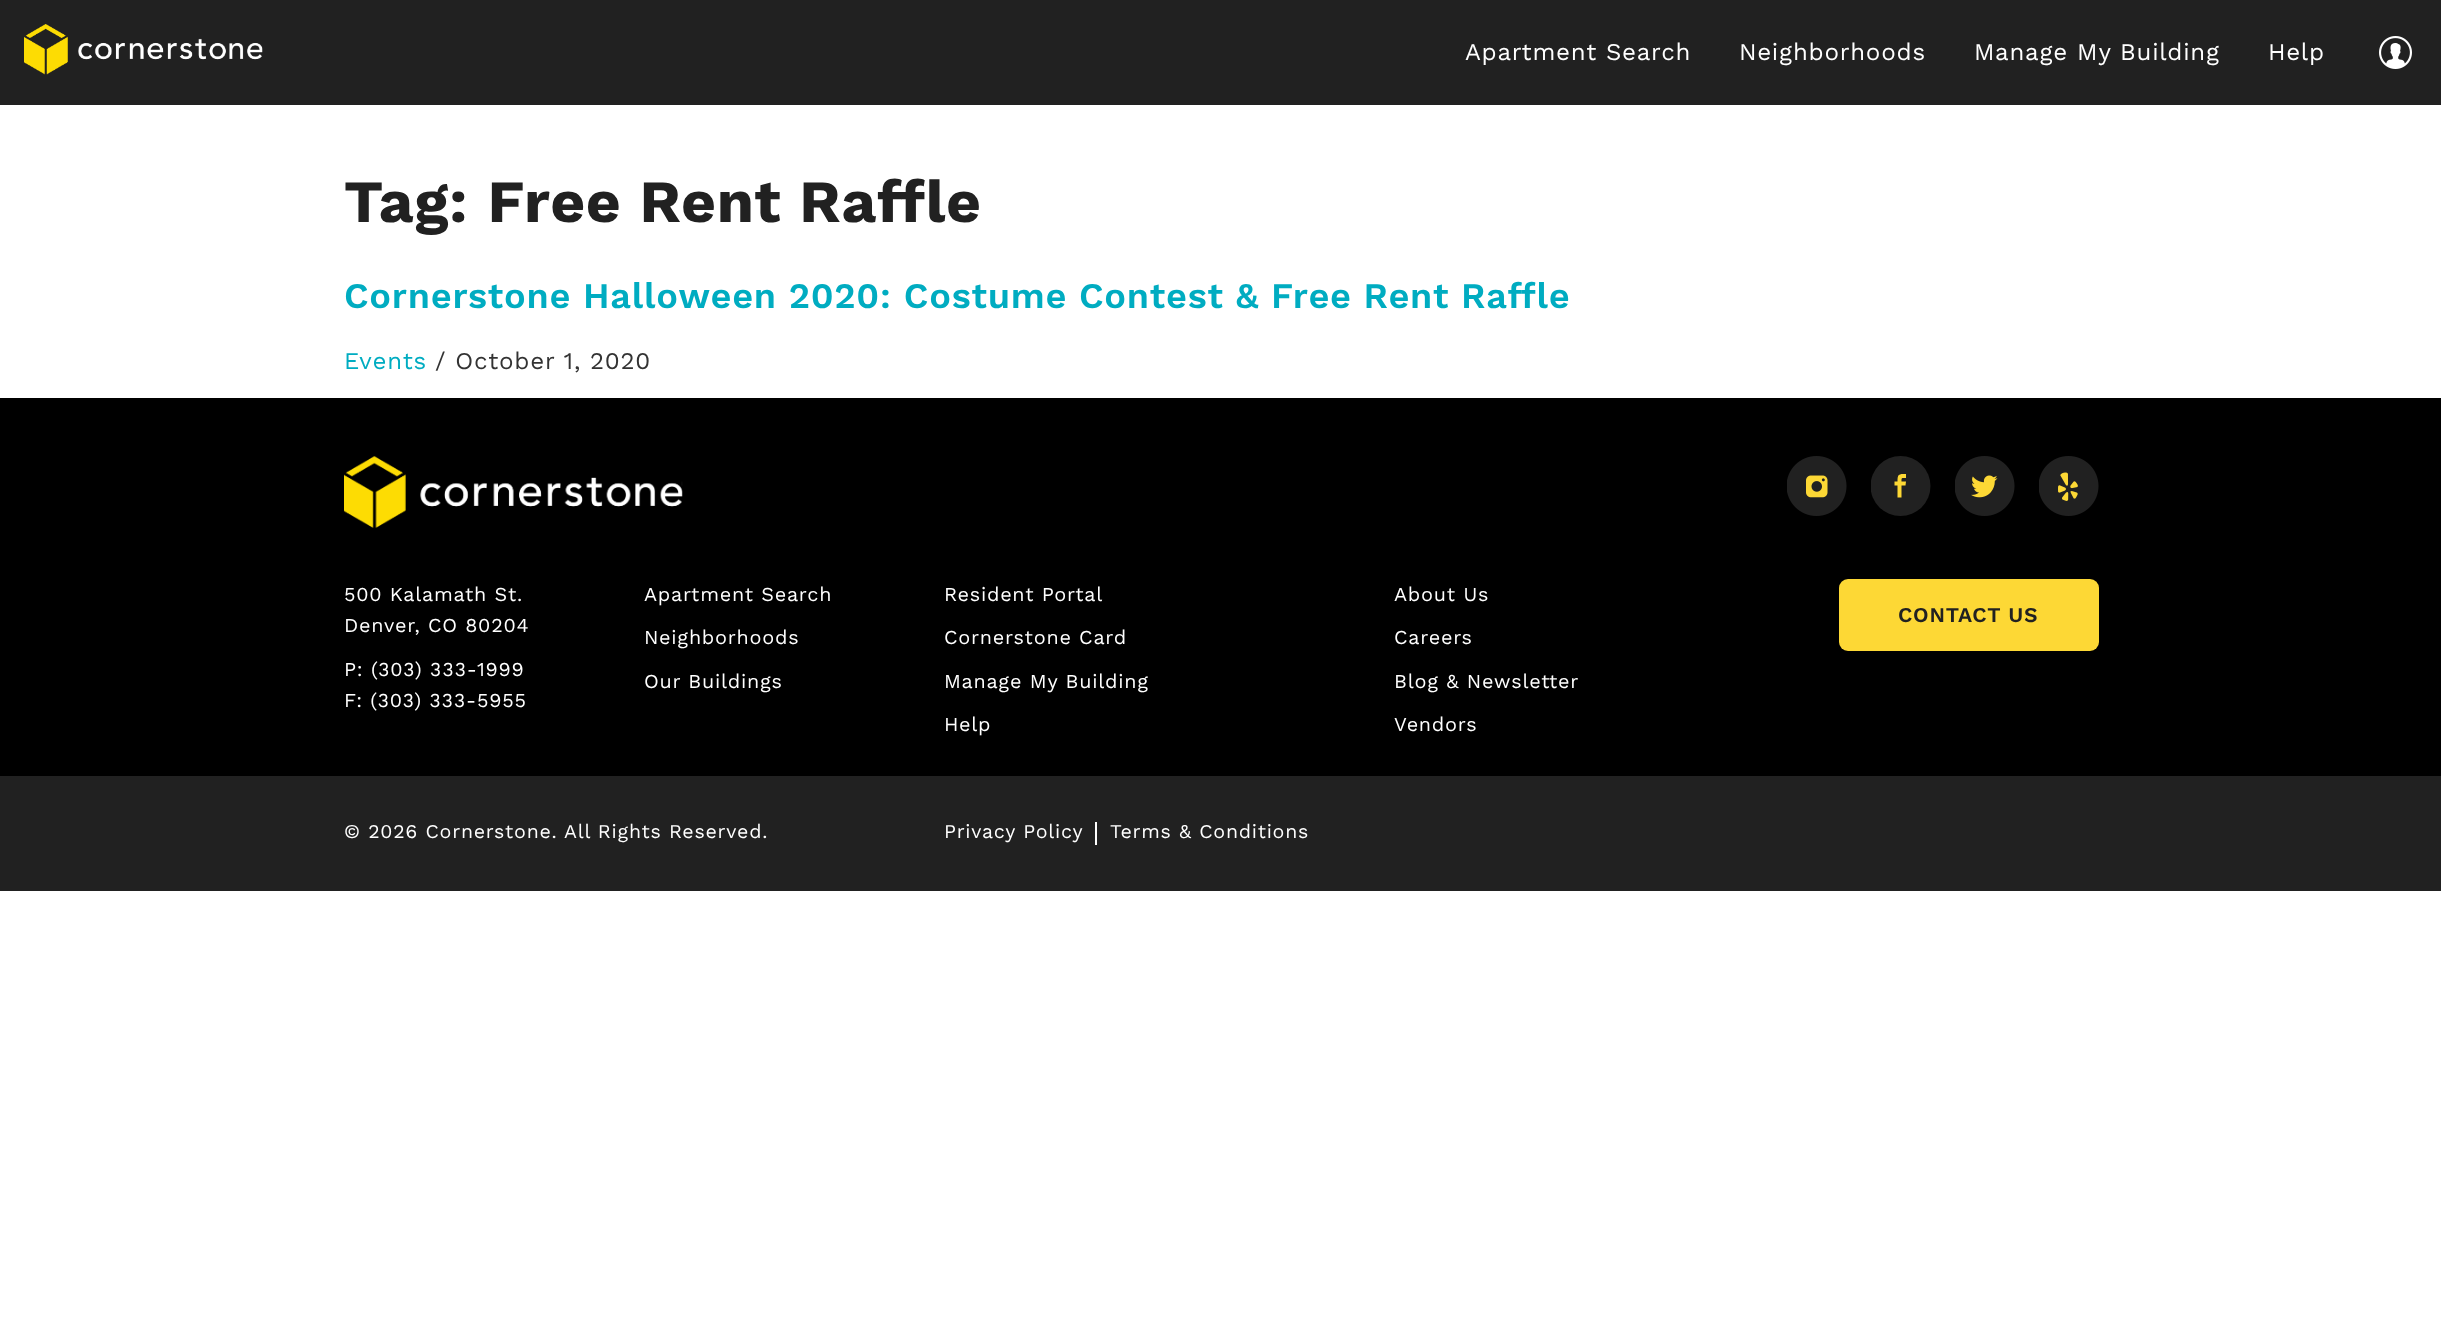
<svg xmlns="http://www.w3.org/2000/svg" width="2441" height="1340">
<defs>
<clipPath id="clip1"><rect x="1871" y="456" width="60" height="60"/></clipPath>
</defs>
<rect width="100%" height="100%" fill="#fff"/>
<rect width="2441" height="105" fill="#212121"/>
<image x="24" y="24" width="239" height="51" href="media/1.png"/>
<text x="1465" y="60" style="font-family:Work Sans;font-size:24px;letter-spacing:0.75px;fill:#fff">Apartment Search</text>
<text x="1739" y="60" style="font-family:Work Sans;font-size:24px;letter-spacing:0.75px;fill:#fff">Neighborhoods</text>
<text x="1974" y="60" style="font-family:Work Sans;font-size:24px;letter-spacing:0.75px;fill:#fff">Manage My Building</text>
<text x="2268" y="60" style="font-family:Work Sans;font-size:24px;letter-spacing:0.75px;fill:#fff">Help</text>
<image x="2379" y="36" width="33" height="33" href="media/2.png"/>
<text x="344" y="222" style="font-family:Work Sans;font-size:60px;font-weight:bold;letter-spacing:0.75px;fill:#212121">Tag: Free Rent Raffle</text>
<text x="344" y="308" style="font-family:Work Sans;font-size:36px;font-weight:600;letter-spacing:0.75px;fill:#00acc1">Cornerstone Halloween 2020: Costume Contest &amp; Free Rent Raffle</text>
<text x="344" y="369" style="font-family:Work Sans;font-size:24px;letter-spacing:0.75px;fill:#00acc1">Events</text>
<text x="435" y="369" style="font-family:Work Sans;font-size:24px;letter-spacing:0.75px;fill:#333">/ October 1, 2020</text>
<rect y="398" width="2441" height="378" fill="#000"/>
<image x="344" y="456" width="339" height="72" href="media/3.png"/>
<image x="1787" y="456" width="60" height="60" href="media/4.png"/>
<g clip-path="url(#clip1)">
<circle cx="1900.5" cy="486" r="30" fill="#212121"/>
</g>
<path d="M1897.5 497.5h4v-12h4l.5-4h-4.5c0-4 0-3.5 4.5-3.5v-4c-7.5 0-8.5 0-8.5 7.5h-3v4h3z" fill="#fdd835" fill-rule="evenodd"/>
<image x="1955" y="456" width="60" height="60" href="media/5.png"/>
<image x="2039" y="456" width="60" height="60" href="media/6.png"/>
<text x="344" y="601" style="font-family:Work Sans;font-size:19.75px;letter-spacing:0.75px;fill:#fff">500 Kalamath St.</text>
<text x="344" y="632" style="font-family:Work Sans;font-size:19.75px;letter-spacing:0.75px;fill:#fff">Denver, CO 80204</text>
<text x="344" y="676" style="font-family:Work Sans;font-size:19.75px;letter-spacing:0.75px;fill:#fff">P: (303) 333-1999</text>
<text x="344" y="707" style="font-family:Work Sans;font-size:19.75px;letter-spacing:0.75px;fill:#fff">F: (303) 333-5955</text>
<text x="644" y="601" style="font-family:Work Sans;font-size:19.75px;letter-spacing:0.75px;fill:#fff">Apartment Search</text>
<text x="644" y="644" style="font-family:Work Sans;font-size:19.75px;letter-spacing:0.75px;fill:#fff">Neighborhoods</text>
<text x="644" y="688" style="font-family:Work Sans;font-size:19.75px;letter-spacing:0.75px;fill:#fff">Our Buildings</text>
<text x="944" y="601" style="font-family:Work Sans;font-size:19.75px;letter-spacing:0.75px;fill:#fff">Resident Portal</text>
<text x="944" y="644" style="font-family:Work Sans;font-size:19.75px;letter-spacing:0.75px;fill:#fff">Cornerstone Card</text>
<text x="944" y="688" style="font-family:Work Sans;font-size:19.75px;letter-spacing:0.75px;fill:#fff">Manage My Building</text>
<text x="944" y="731" style="font-family:Work Sans;font-size:19.75px;letter-spacing:0.75px;fill:#fff">Help</text>
<text x="1394" y="601" style="font-family:Work Sans;font-size:19.75px;letter-spacing:0.75px;fill:#fff">About Us</text>
<text x="1394" y="644" style="font-family:Work Sans;font-size:19.75px;letter-spacing:0.75px;fill:#fff">Careers</text>
<text x="1394" y="688" style="font-family:Work Sans;font-size:19.75px;letter-spacing:0.75px;fill:#fff">Blog &amp; Newsletter</text>
<text x="1394" y="731" style="font-family:Work Sans;font-size:19.75px;letter-spacing:0.75px;fill:#fff">Vendors</text>
<rect x="1839" y="579" width="260" height="72" rx="9" fill="#fdd835"/>
<text x="1898" y="622" style="font-family:Work Sans;font-size:21px;font-weight:600;letter-spacing:0.75px;fill:#212121">CONTACT US</text>
<rect y="776" width="2441" height="115" fill="#212121"/>
<text x="344" y="838" style="font-family:Work Sans;font-size:19.5px;letter-spacing:0.75px;fill:#fff">© 2026 Cornerstone. All Rights Reserved.</text>
<rect x="1095" y="822" width="2" height="23" fill="#fff"/>
<text x="944" y="838" style="font-family:Work Sans;font-size:19.5px;letter-spacing:0.75px;fill:#fff">Privacy Policy</text>
<text x="1110" y="838" style="font-family:Work Sans;font-size:19.5px;letter-spacing:0.75px;fill:#fff">Terms &amp; Conditions</text>
</svg>
